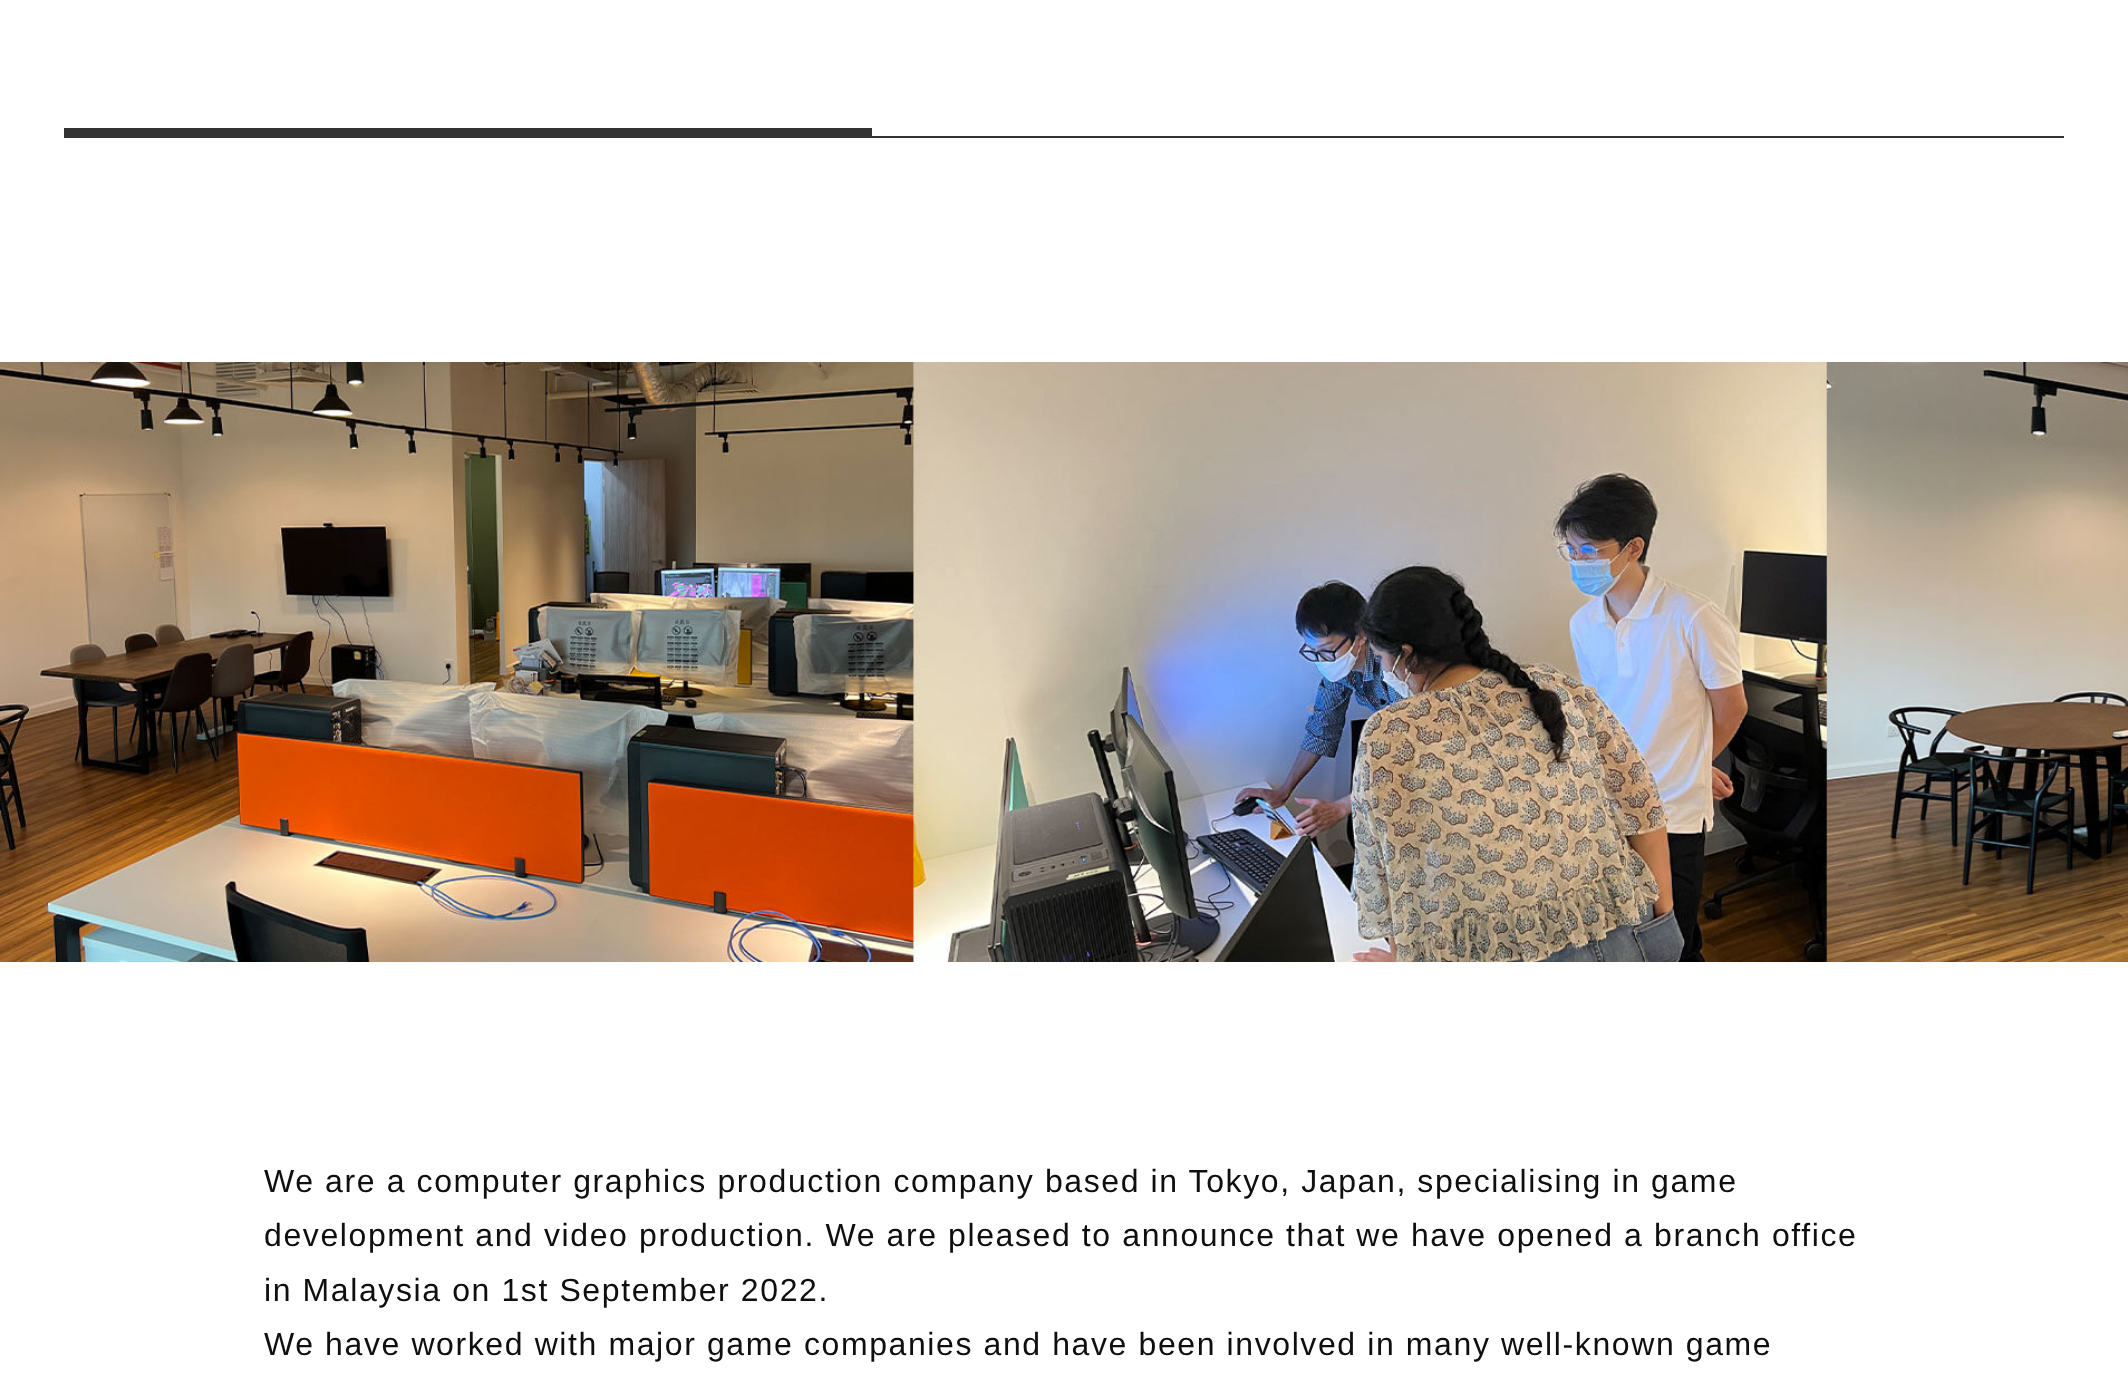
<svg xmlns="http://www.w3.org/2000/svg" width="2128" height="1383">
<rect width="100%" height="100%" fill="#fff"/>
<rect x="64" y="136" width="2000" height="2" fill="#333"/>
<rect x="64" y="128" width="808" height="8" fill="#333"/>
<image x="0" y="362" width="2128" height="600" href="media/1.png"/>
<text x="264" y="1192" style="font-family:Liberation Sans;font-size:32px;letter-spacing:1.6px;fill:#0f0f0e">We are a computer graphics production company based in Tokyo, Japan, specialising in game</text>
<text x="264" y="1246" style="font-family:Liberation Sans;font-size:32px;letter-spacing:1.6px;fill:#0f0f0e">development and video production. We are pleased to announce that we have opened a branch office</text>
<text x="264" y="1301" style="font-family:Liberation Sans;font-size:32px;letter-spacing:1.6px;fill:#0f0f0e">in Malaysia on 1st September 2022.</text>
<text x="264" y="1355" style="font-family:Liberation Sans;font-size:32px;letter-spacing:1.6px;fill:#0f0f0e">We have worked with major game companies and have been involved in many well-known game</text>
</svg>
